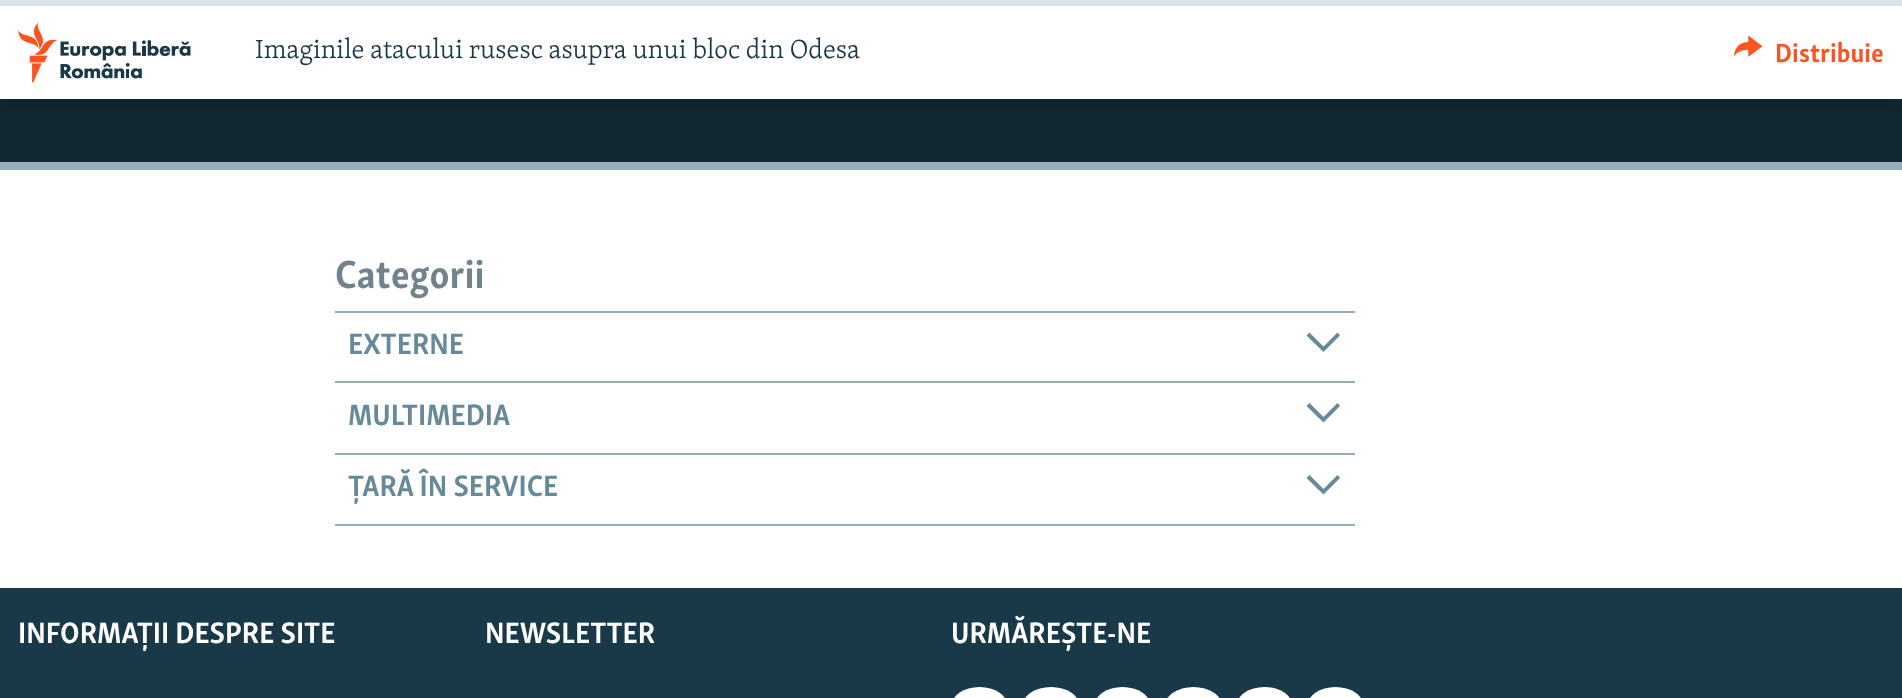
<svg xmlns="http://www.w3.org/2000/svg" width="1902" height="698">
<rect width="100%" height="100%" fill="#fff"/>
<rect y="99" width="1902" height="63" fill="#122832"/>
<rect y="8" width="1902" height="99" fill="#0000001a" filter="blur(7.5px)"/>
<rect y="6" width="1902" height="93" fill="#fff"/>
<rect width="1902" height="6" fill="#dce4e8"/>
<image x="18" y="23" width="173" height="60" href="media/1.png"/>
<text x="255" y="58" style="font-family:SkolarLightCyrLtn;font-size:27px;font-weight:300;fill:#1a3948">Imaginile atacului rusesc asupra unui bloc din Odesa</text>
<image x="1734" y="35" width="29" height="22" href="media/2.png"/>
<text x="1775" y="62" style="font-family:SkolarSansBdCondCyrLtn;font-size:27px;font-weight:bold;fill:#fa5420">Distribuie</text>
<rect y="162" width="1902" height="8" fill="#95adb9"/>
<rect x="335" y="311" width="1020" height="2" fill="#95adb9"/>
<text x="335" y="288" style="font-family:SkolarSansBdCondCyrLtn;font-size:40.5px;font-weight:bold;fill:#71838d">Categorii</text>
<rect x="335" y="381" width="1020" height="2" fill="#95adb9"/>
<text x="348" y="354" style="font-family:SkolarSansBdCondCyrLtn;font-size:30.4px;font-weight:bold;fill:#678a9b">EXTERNE</text>
<path d="M1306.5 335.5l17 16.5l16.5-16.5l-2.5-3l-14 14l-14-14z" fill="#678a9b"/>
<rect x="335" y="453" width="1020" height="2" fill="#95adb9"/>
<text x="348" y="425" style="font-family:SkolarSansBdCondCyrLtn;font-size:30.4px;font-weight:bold;fill:#678a9b">MULTIMEDIA</text>
<path d="M1306.5 406l17 16.5l16.5-16.5l-2.5-3l-14 14l-14-14z" fill="#678a9b"/>
<rect x="335" y="524" width="1020" height="2" fill="#95adb9"/>
<text x="348" y="496" style="font-family:SkolarSansBdCondCyrLtn;font-size:30.4px;font-weight:bold;fill:#678a9b">ȚARĂ ÎN SERVICE</text>
<path d="M1306.5 478l17 16.5l16.5-16.5l-2.5-3l-14 14l-14-14z" fill="#678a9b"/>
<rect y="588" width="1902" height="110" fill="#1a3948"/>
<text x="18" y="643" style="font-family:SkolarSansBdCondCyrLtn;font-size:30.4px;font-weight:bold;fill:#fff">INFORMAȚII DESPRE SITE</text>
<text x="485" y="643" style="font-family:SkolarSansBdCondCyrLtn;font-size:30.4px;font-weight:bold;fill:#fff">NEWSLETTER</text>
<text x="951" y="643" style="font-family:SkolarSansBdCondCyrLtn;font-size:30.4px;font-weight:bold;fill:#fff">URMĂREȘTE-NE</text>
<rect x="951" y="687" width="57" height="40" rx="28.5" fill="#fff"/>
<rect x="1022" y="687" width="58" height="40" rx="29" fill="#fff"/>
<rect x="1094" y="687" width="57" height="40" rx="28.5" fill="#fff"/>
<rect x="1164" y="687" width="59" height="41" rx="29.5" fill="#fff"/>
<rect x="1236" y="687" width="57" height="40" rx="28.5" fill="#fff"/>
<rect x="1307" y="687" width="57" height="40" rx="28.5" fill="#fff"/>
</svg>
